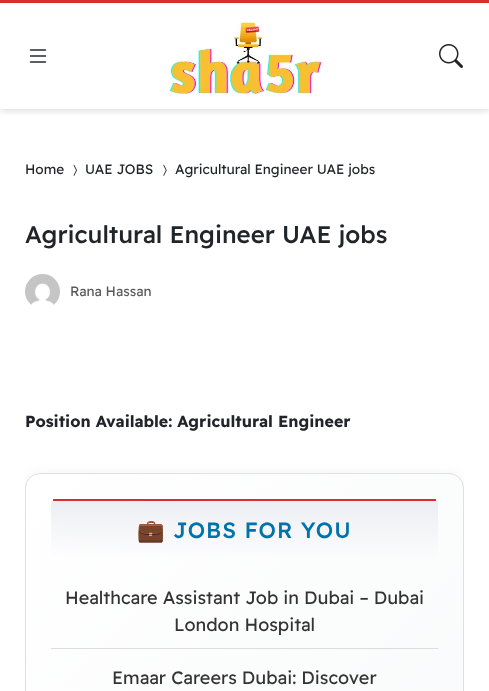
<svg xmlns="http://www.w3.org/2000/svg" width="489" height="691">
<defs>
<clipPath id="clip1"><rect x="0" y="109" width="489" height="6"/></clipPath>
<clipPath id="clip2"><rect x="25" y="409" width="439" height="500"/></clipPath>
<clipPath id="clip3"><rect x="25" y="473" width="439" height="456" rx="15"/></clipPath>
<linearGradient id="g1" gradientUnits="userSpaceOnUse" x1="22" y1="478" x2="467" y2="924"><stop offset="0" stop-color="#fff"/><stop offset="1" stop-color="#f8f9fa"/></linearGradient>
<linearGradient id="g2" gradientUnits="userSpaceOnUse" x1="245" y1="501" x2="245" y2="559"><stop offset="0" stop-color="#edeef3"/><stop offset="1" stop-color="#edeef3" stop-opacity="0"/></linearGradient>
</defs>
<rect width="100%" height="100%" fill="#fff"/>
<g clip-path="url(#clip1)">
<rect width="489" height="109" fill="#00000033" filter="blur(5px)"/>
</g>
<rect width="489" height="3" fill="#d62f2f"/>
<image x="29" y="49" width="18" height="14" href="media/1.png"/>
<image x="169" y="21" width="153" height="75" href="media/2.png"/>
<image x="439" y="44" width="24" height="24" href="media/3.png"/>
<text x="25" y="174" style="font-family:Readex Pro;font-size:13.6px;fill:#212529">Home</text>
<image x="73" y="164" width="4" height="12" href="media/4.png"/>
<text x="85" y="174" style="font-family:Readex Pro;font-size:13.6px;fill:#212529">UAE JOBS</text>
<image x="163" y="164" width="4" height="12" href="media/5.png"/>
<text x="175" y="174" style="font-family:Readex Pro;font-size:13.6px;fill:#212529">Agricultural Engineer UAE jobs</text>
<text x="25" y="243" style="font-family:Readex Pro;font-size:24.1px;font-weight:500;fill:#212529">Agricultural Engineer UAE jobs</text>
<image x="25" y="274" width="35" height="31" href="media/6.png"/>
<text x="70" y="296" style="font-family:Readex Pro;font-size:13.6px;fill:#595959">Rana Hassan</text>
<text x="25" y="427" style="font-family:Readex Pro;font-size:16px;font-weight:bold;fill:#212529">Position Available: Agricultural Engineer</text>
<g clip-path="url(#clip2)">
<rect x="25" y="477" width="439" height="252" rx="15" fill="#00000014" filter="blur(7.5px)"/>
</g>
<g clip-path="url(#clip3)">
<rect x="26" y="474" width="437" height="217" fill="url(#g1)"/>
</g>
<rect x="25.5" y="473.5" width="438" height="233" rx="14.5" fill="none" stroke="#e0e0e0"/>
<path d="M51 501h387v54c0 2-2 4-4 4h-379c-2 0-4-2-4-4z" fill="url(#g2)"/>
<rect x="53" y="499" width="383" height="2" fill="#d62f2f"/>
<text x="137" y="538" style="font-family:Noto Color Emoji;font-size:22px;letter-spacing:1px;fill:#0073aa">💼</text>
<text x="173" y="538" style="font-family:Readex Pro;font-size:22px;font-weight:500;letter-spacing:1px;fill:#0073aa">JOBS FOR YOU</text>
<rect x="51" y="648" width="387" height="1" fill="#ddd"/>
<text x="65" y="604" style="font-family:Readex Pro;font-size:18px;fill:#333">Healthcare Assistant Job in Dubai – Dubai</text>
<text x="174" y="631" style="font-family:Readex Pro;font-size:18px;fill:#333">London Hospital</text>
<text x="112" y="684" style="font-family:Readex Pro;font-size:18px;fill:#333">Emaar Careers Dubai: Discover</text>
</svg>
